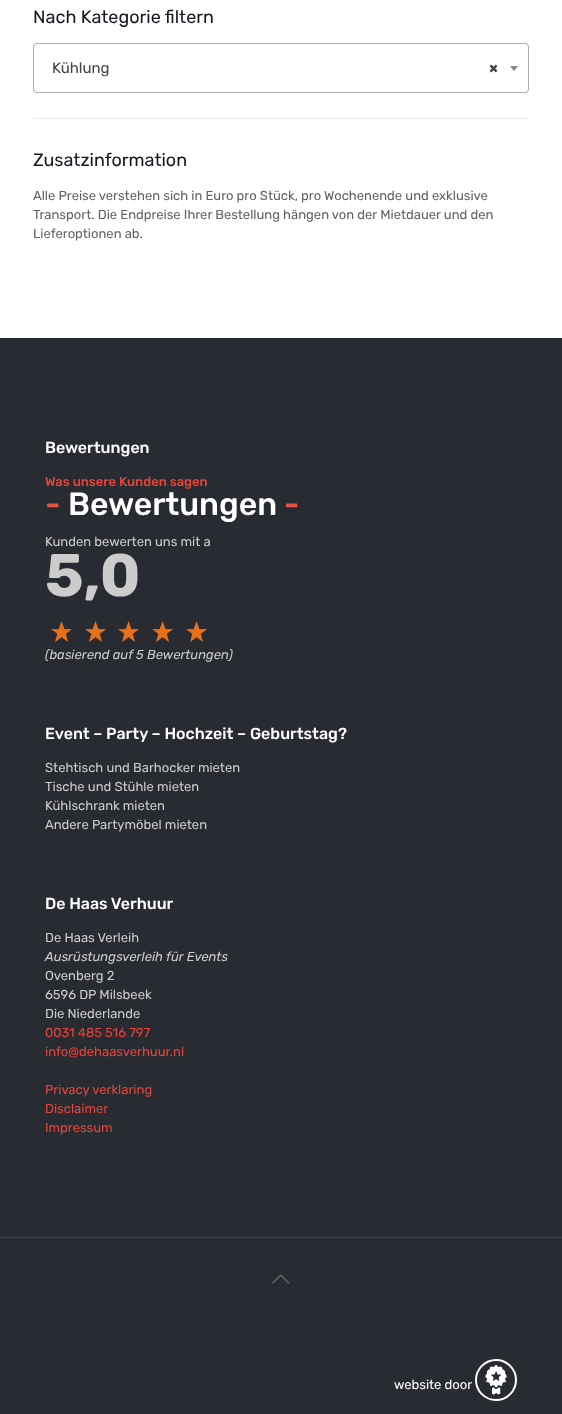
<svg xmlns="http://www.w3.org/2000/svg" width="562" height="1414">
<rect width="100%" height="100%" fill="#fff"/>
<text x="33" y="23" style="font-family:Rubik;font-size:18px;fill:#161922">Nach Kategorie filtern</text>
<rect x="33.5" y="43.5" width="495" height="49" rx="3.5" fill="none" stroke="#aaa"/>
<text x="52" y="73" style="font-family:Rubik;font-size:15px;fill:#444">Kühlung</text>
<text x="489" y="73" style="font-family:Rubik;font-size:15px;font-weight:bold;fill:#444">×</text>
<path d="M510 66h8l-4 5z" fill="#888"/>
<rect x="33" y="118" width="496" height="1" fill="#ebebeb"/>
<text x="33" y="166" style="font-family:Rubik;font-size:18px;fill:#161922">Zusatzinformation</text>
<text x="33" y="200" style="font-family:Rubik;font-size:13px;fill:#626262">Alle Preise verstehen sich in Euro pro Stück, pro Wochenende und exklusive</text>
<text x="33" y="219" style="font-family:Rubik;font-size:13px;fill:#626262">Transport. Die Endpreise Ihrer Bestellung hängen von der Mietdauer und den</text>
<text x="33" y="238" style="font-family:Rubik;font-size:13px;fill:#626262">Lieferoptionen ab.</text>
<rect y="338" width="562" height="1076" fill="#292b33"/>
<text x="45" y="453" style="font-family:Rubik;font-size:16px;font-weight:500;fill:#fff">Bewertungen</text>
<text x="45" y="486" style="font-family:Rubik;font-size:13px;font-weight:500;fill:#e54539">Was unsere Kunden sagen</text>
<text x="45" y="515" style="font-family:Rubik;font-size:32px;font-weight:500;fill:#e75146">-</text>
<text x="68" y="515" style="font-family:Rubik;font-size:32px;font-weight:500;fill:#fff">Bewertungen</text>
<text x="284" y="515" style="font-family:Rubik;font-size:32px;font-weight:500;fill:#e75146">-</text>
<text x="45" y="546" style="font-family:Rubik;font-size:13px;fill:#ccc">Kunden bewerten uns mit a</text>
<text x="45" y="596" style="font-family:Rubik;font-size:60px;font-weight:bold;fill:#ccc">5,0</text>
<image x="51" y="621" width="21" height="21" href="media/1.png"/>
<image x="85" y="621" width="21" height="21" href="media/1.png"/>
<image x="118" y="621" width="21" height="21" href="media/1.png"/>
<image x="152" y="621" width="21" height="21" href="media/1.png"/>
<image x="186" y="621" width="21" height="21" href="media/1.png"/>
<text x="45" y="659" style="font-family:Rubik;font-size:13px;font-style:italic;fill:#ccc">(basierend auf 5 Bewertungen)</text>
<text x="45" y="739" style="font-family:Rubik;font-size:16px;font-weight:500;fill:#fff">Event – Party – Hochzeit – Geburtstag?</text>
<text x="45" y="772" style="font-family:Rubik;font-size:13px;fill:#ccc">Stehtisch und Barhocker mieten</text>
<text x="45" y="791" style="font-family:Rubik;font-size:13px;fill:#ccc">Tische und Stühle mieten</text>
<text x="45" y="810" style="font-family:Rubik;font-size:13px;fill:#ccc">Kühlschrank mieten</text>
<text x="45" y="829" style="font-family:Rubik;font-size:13px;fill:#ccc">Andere Partymöbel mieten</text>
<text x="45" y="909" style="font-family:Rubik;font-size:16px;font-weight:500;fill:#fff">De Haas Verhuur</text>
<text x="45" y="942" style="font-family:Rubik;font-size:13px;fill:#ccc">De Haas Verleih</text>
<text x="45" y="961" style="font-family:Rubik;font-size:13px;font-style:italic;fill:#ccc">Ausrüstungsverleih für Events</text>
<text x="45" y="980" style="font-family:Rubik;font-size:13px;fill:#ccc">Ovenberg 2</text>
<text x="45" y="999" style="font-family:Rubik;font-size:13px;fill:#ccc">6596 DP Milsbeek</text>
<text x="45" y="1018" style="font-family:Rubik;font-size:13px;fill:#ccc">Die Niederlande</text>
<text x="45" y="1037" style="font-family:Rubik;font-size:13px;fill:#e54539">0031 485 516 797</text>
<text x="45" y="1056" style="font-family:Rubik;font-size:13px;fill:#e54539">info@dehaasverhuur.nl</text>
<text x="45" y="1094" style="font-family:Rubik;font-size:13px;fill:#e54539">Privacy verklaring</text>
<text x="45" y="1113" style="font-family:Rubik;font-size:13px;fill:#e54539">Disclaimer</text>
<text x="45" y="1132" style="font-family:Rubik;font-size:13px;fill:#e54539">Impressum</text>
<rect y="1237" width="562" height="1" fill="#3e4047"/>
<image x="272" y="1274" width="18" height="10" href="media/2.png"/>
<circle cx="496" cy="1380" r="20" fill="none" stroke="#fff" stroke-width="2"/>
<text x="394" y="1389" style="font-family:Rubik;font-size:13px;fill:#fff">website door</text>
<image x="485" y="1365" width="22" height="30" href="media/3.png"/>
</svg>
